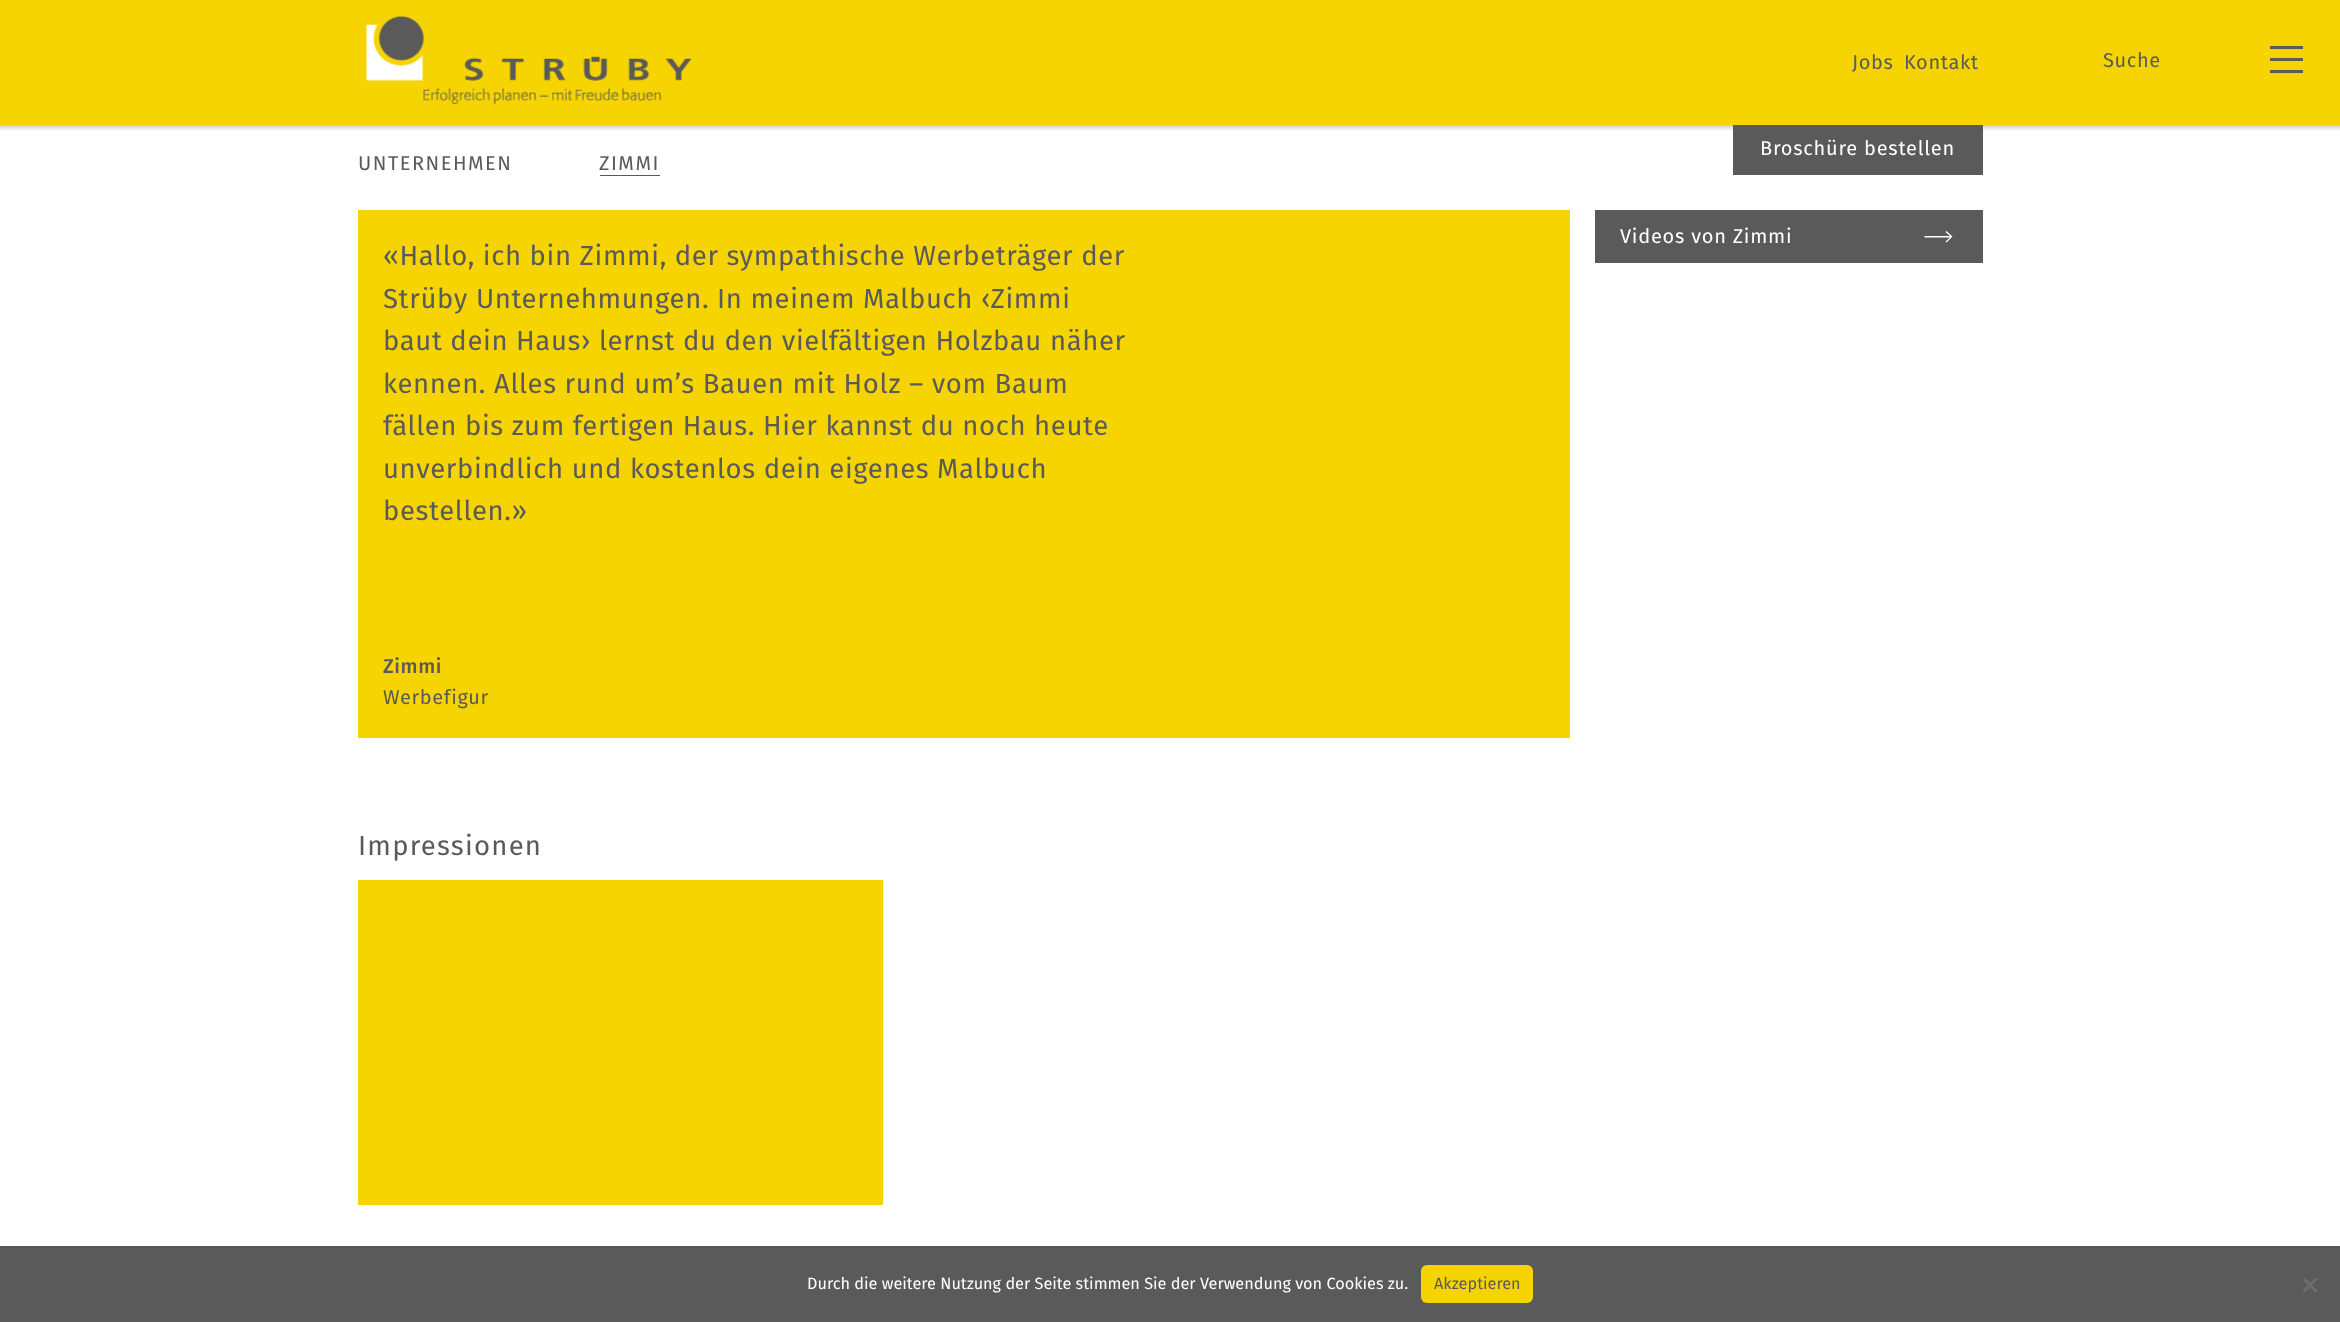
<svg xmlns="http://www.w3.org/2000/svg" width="2340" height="1322">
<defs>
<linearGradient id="g1" gradientUnits="userSpaceOnUse" x1="1170" y1="125" x2="1170" y2="131"><stop offset="0" stop-color="#515352" stop-opacity="0.3"/><stop offset="1" stop-color="#515352" stop-opacity="0"/></linearGradient>
</defs>
<rect width="100%" height="100%" fill="#fff"/>
<rect width="2340" height="125" fill="#f6d401"/>
<image x="366" y="15" width="326" height="89" href="media/1.png"/>
<text x="1852" y="69" style="font-family:Fira Sans;font-size:20px;letter-spacing:0.62px;fill:#5a5a5a">Jobs</text>
<text x="1904" y="69" style="font-family:Fira Sans;font-size:20px;letter-spacing:0.62px;fill:#5a5a5a">Kontakt</text>
<rect x="1733" y="125" width="250" height="50" fill="#5a5a5a"/>
<text x="1760" y="155" style="font-family:Fira Sans;font-size:20px;letter-spacing:0.75px;fill:#fff">Broschüre bestellen</text>
<text x="2103" y="67" style="font-family:Fira Sans;font-size:20px;letter-spacing:0.62px;fill:#5a5a5a">Suche</text>
<rect x="2270" y="46" width="33" height="3" fill="#5a5a5a"/>
<rect x="2270" y="58" width="33" height="3" fill="#5a5a5a"/>
<rect x="2270" y="70" width="33" height="3" fill="#5a5a5a"/>
<rect y="125" width="2340" height="6" fill="url(#g1)"/>
<text x="358" y="170" style="font-family:Fira Sans;font-size:20px;letter-spacing:1.5px;fill:#5a5a5a">UNTERNEHMEN</text>
<text x="599" y="170" style="font-family:Fira Sans;font-size:20px;letter-spacing:1.5px;fill:#5a5a5a">ZIMMI</text>
<rect x="600" y="175" width="60" height="1" fill="#5a5a5a"/>
<rect x="1595" y="210" width="388" height="53" fill="#5a5a5a"/>
<path d="M1946.5 231l-1 1l4.5 4h-25.5v1.5h25.5l-4.5 4l1 1l6-6z" fill="#fff"/>
<text x="1620" y="243" style="font-family:Fira Sans;font-size:20px;letter-spacing:0.75px;fill:#fff">Videos von Zimmi</text>
<rect x="358" y="210" width="1212" height="528" fill="#f6d401"/>
<text x="383" y="265" style="font-family:Fira Sans;font-size:27.5px;letter-spacing:0.62px;fill:#5a5a5a">«Hallo, ich bin Zimmi, der sympathische Werbeträger der</text>
<text x="383" y="308" style="font-family:Fira Sans;font-size:27.5px;letter-spacing:0.62px;fill:#5a5a5a">Strüby Unternehmungen. In meinem Malbuch ‹Zimmi</text>
<text x="383" y="350" style="font-family:Fira Sans;font-size:27.5px;letter-spacing:0.62px;fill:#5a5a5a">baut dein Haus› lernst du den vielfältigen Holzbau näher</text>
<text x="383" y="393" style="font-family:Fira Sans;font-size:27.5px;letter-spacing:0.62px;fill:#5a5a5a">kennen. Alles rund um’s Bauen mit Holz – vom Baum</text>
<text x="383" y="435" style="font-family:Fira Sans;font-size:27.5px;letter-spacing:0.62px;fill:#5a5a5a">fällen bis zum fertigen Haus. Hier kannst du noch heute</text>
<text x="383" y="478" style="font-family:Fira Sans;font-size:27.5px;letter-spacing:0.62px;fill:#5a5a5a">unverbindlich und kostenlos dein eigenes Malbuch</text>
<text x="383" y="520" style="font-family:Fira Sans;font-size:27.5px;letter-spacing:0.62px;fill:#5a5a5a">bestellen.»</text>
<text x="383" y="673" style="font-family:Fira Sans;font-size:20px;font-weight:500;letter-spacing:0.62px;fill:#5a5a5a">Zimmi</text>
<text x="383" y="704" style="font-family:Fira Sans;font-size:20px;letter-spacing:0.62px;fill:#5a5a5a">Werbefigur</text>
<text x="358" y="855" style="font-family:Fira Sans;font-size:27.5px;letter-spacing:1.25px;fill:#5a5a5a">Impressionen</text>
<rect x="358" y="880" width="525" height="325" fill="#f6d401"/>
<rect y="1246" width="2340" height="76" fill="#5a5a5a"/>
<text x="807" y="1289" style="font-family:Fira Sans;font-size:16.25px;fill:#fff">Durch die weitere Nutzung der Seite stimmen Sie der Verwendung von Cookies zu.</text>
<rect x="1421" y="1265" width="112" height="38" rx="6" fill="#f6d401"/>
<text x="1434" y="1289" style="font-family:Fira Sans;font-size:16.25px;fill:#5a5a5a">Akzeptieren</text>
<path d="M2315.5 1277.5l2 2l-13 13l-2-2z" fill="#6d6d6d"/>
<path d="M2302.5 1279.5l2-2l13 13l-2 2z" fill="#6d6d6d"/>
</svg>
